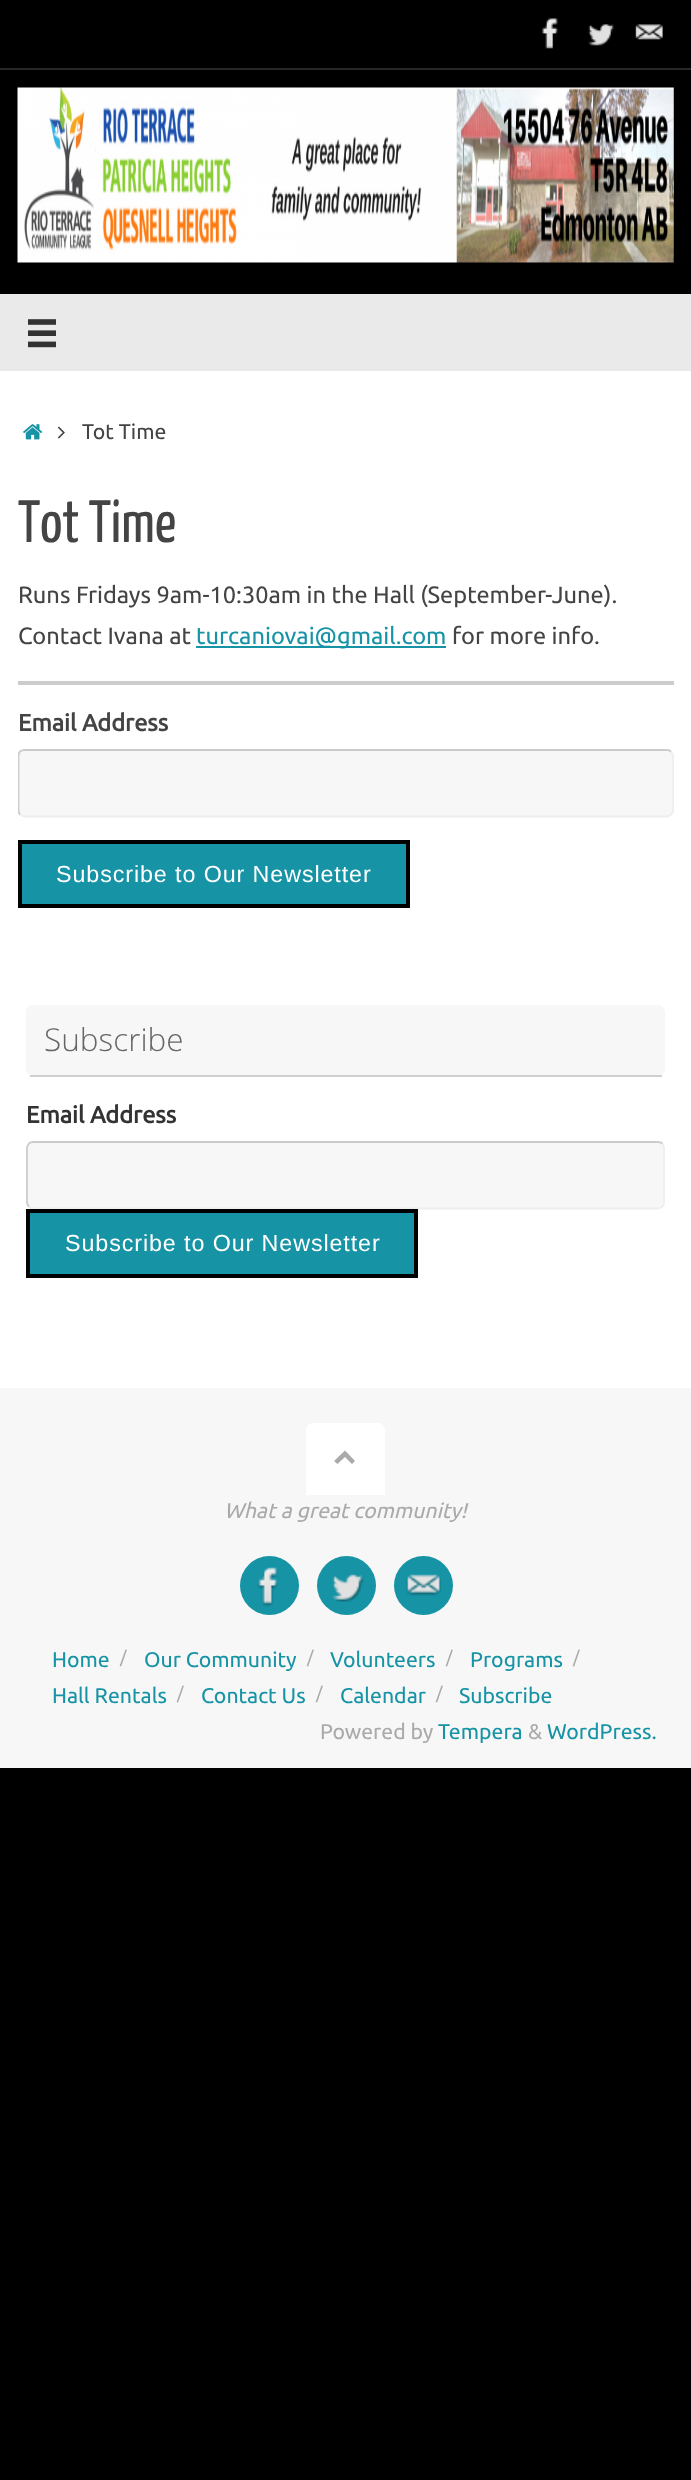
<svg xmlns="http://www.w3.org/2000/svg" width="691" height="2480">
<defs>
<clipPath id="clip1"><rect x="18" y="487" width="656" height="446"/></clipPath>
</defs>
<rect width="100%" height="100%" fill="#000"/>
<rect y="68" width="691" height="2" fill="#282828"/>
<image x="542" y="18" width="16" height="31" href="media/1.png"/>
<image x="588" y="24" width="26" height="22" href="media/2.png"/>
<image x="635" y="24" width="28" height="16" href="media/3.png"/>
<image x="17" y="87" width="657" height="176" href="media/4.png"/>
<rect y="294" width="691" height="77" fill="#eaeaea"/>
<image x="28" y="319" width="28" height="29" href="media/5.png"/>
<rect y="371" width="691" height="1017" fill="#fff"/>
<image x="23" y="424" width="20" height="16" href="media/6.png"/>
<image x="57" y="426" width="8" height="13" href="media/7.png"/>
<text x="82" y="439" style="font-family:Ubuntu;font-size:21.25px;fill:#444">Tot Time</text>
<text x="18" y="542" style="font-family:Yanone Kaffeesatz;font-size:59.5px;fill:#444">Tot Time</text>
<text x="18" y="603" style="font-family:Ubuntu;font-size:23.6px;fill:#444">Runs Fridays 9am-10:30am in the Hall (September-June).</text>
<text x="18" y="644" style="font-family:Ubuntu;font-size:23.6px;fill:#444">Contact Ivana at</text>
<rect x="196" y="646" width="250" height="2" fill="#1693a5"/>
<text x="196" y="644" style="font-family:Ubuntu;font-size:23.6px;fill:#1693a5">turcaniovai@gmail.com</text>
<text x="452" y="644" style="font-family:Ubuntu;font-size:23.6px;fill:#444">for more info.</text>
<rect x="18" y="681" width="656" height="4" fill="#ccc"/>
<text x="18" y="731" style="font-family:Ubuntu;font-size:23.6px;font-weight:bold;fill:#444">Email Address</text>
<rect x="18" y="749" width="656" height="68" rx="7" fill="#f7f7f7"/>
<path d="M671 751.5c1 1.5 2 3 2 4.5v54c0 2-1 3.5-2 4.5c-1 1-2.5 2-4 2h-642.5c-1.5 0-3-1-4.5-2" fill="none" stroke="#eee" stroke-width="1.8"/>
<g clip-path="url(#clip1)">
<path d="M20 814.5c-1-1-1.5-2.5-1.5-4.5v-54c0-1.5 .5-3 1.5-4.5c1.5-1 3-1.5 4.5-1.5h642.5c1.5 0 3 .5 4 1.5" fill="none" stroke="#ccc" stroke-width="1.8"/>
</g>
<rect x="20" y="842" width="388" height="64" fill="#1693a5" stroke="#000" stroke-width="4"/>
<text x="56" y="882" style="font-family:Liberation Sans;font-size:23.3px;letter-spacing:0.9px;fill:#fff">Subscribe to Our Newsletter</text>
<rect x="26" y="1005" width="639" height="71" rx="7" fill="#f7f7f7"/>
<rect x="30" y="1075" width="632" height="2" fill="#cfcfcf"/>
<text x="44" y="1051" style="font-family:Open Sans;font-size:31.5px;font-weight:300;fill:#666">Subscribe</text>
<text x="26" y="1123" style="font-family:Ubuntu;font-size:23.6px;font-weight:bold;fill:#333">Email Address</text>
<rect x="26" y="1141" width="639" height="68" rx="7" fill="#f7f7f7"/>
<path d="M662.5 1143.5c1 1.5 1.5 3 1.5 4.5v54c0 2-.5 3.5-1.5 4.5c-1.5 1-3 2-4.5 2h-625c-1.5 0-3-1-4-2" fill="none" stroke="#eee" stroke-width="1.8"/>
<path d="M29 1206.5c-1-1-2-2.5-2-4.5v-54c0-1.5 1-3 2-4.5c1-1 2.5-1.5 4-1.5h625c1.5 0 3 .5 4.5 1.5" fill="none" stroke="#ccc" stroke-width="1.8"/>
<rect x="28" y="1211" width="388" height="65" fill="#1693a5" stroke="#000" stroke-width="4"/>
<text x="65" y="1251" style="font-family:Liberation Sans;font-size:23.3px;letter-spacing:0.9px;fill:#fff">Subscribe to Our Newsletter</text>
<rect y="1388" width="691" height="380" fill="#f7f7f7"/>
<path d="M313 1423h65c4 0 7 3 7 7v65h-79v-65c0-4 3-7 7-7z" fill="#fff"/>
<path d="M334 1461l11-10.5l10 10.5l-3 3l-7-7l-7.5 7z" fill="#aaa"/>
<text x="224" y="1518" style="font-family:Ubuntu;font-size:21.25px;font-style:italic;fill:#aaa">What a great community!</text>
<circle cx="269.5" cy="1585.5" r="29.5" fill="#1693a5"/>
<image x="257" y="1567" width="21" height="40" href="media/8.png"/>
<circle cx="346.5" cy="1585.5" r="29.5" fill="#1693a5"/>
<image x="332" y="1574" width="32" height="28" href="media/9.png"/>
<circle cx="423.5" cy="1585.5" r="29.5" fill="#1693a5"/>
<image x="406" y="1574" width="35" height="22" href="media/10.png"/>
<text x="52" y="1667" style="font-family:Ubuntu;font-size:21.25px;fill:#1693a5">Home</text>
<text x="120" y="1663" style="font-family:Ubuntu;font-size:17px;fill:#aaa">/</text>
<text x="144" y="1667" style="font-family:Ubuntu;font-size:21.25px;fill:#1693a5">Our Community</text>
<text x="307" y="1663" style="font-family:Ubuntu;font-size:17px;fill:#aaa">/</text>
<text x="330" y="1667" style="font-family:Ubuntu;font-size:21.25px;fill:#1693a5">Volunteers</text>
<text x="446" y="1663" style="font-family:Ubuntu;font-size:17px;fill:#aaa">/</text>
<text x="470" y="1667" style="font-family:Ubuntu;font-size:21.25px;fill:#1693a5">Programs</text>
<text x="573" y="1663" style="font-family:Ubuntu;font-size:17px;fill:#aaa">/</text>
<text x="52" y="1703" style="font-family:Ubuntu;font-size:21.25px;fill:#1693a5">Hall Rentals</text>
<text x="177" y="1699" style="font-family:Ubuntu;font-size:17px;fill:#aaa">/</text>
<text x="201" y="1703" style="font-family:Ubuntu;font-size:21.25px;fill:#1693a5">Contact Us</text>
<text x="316" y="1699" style="font-family:Ubuntu;font-size:17px;fill:#aaa">/</text>
<text x="340" y="1703" style="font-family:Ubuntu;font-size:21.25px;fill:#1693a5">Calendar</text>
<text x="436" y="1699" style="font-family:Ubuntu;font-size:17px;fill:#aaa">/</text>
<text x="459" y="1703" style="font-family:Ubuntu;font-size:21.25px;fill:#1693a5">Subscribe</text>
<text x="320" y="1739" style="font-family:Ubuntu;font-size:21.25px;fill:#aaa">Powered by</text>
<text x="438" y="1739" style="font-family:Ubuntu;font-size:21.25px;fill:#1693a5">Tempera</text>
<text x="528" y="1739" style="font-family:Ubuntu;font-size:21.25px;fill:#aaa">&amp;</text>
<text x="547" y="1739" style="font-family:Ubuntu;font-size:21.25px;fill:#1693a5">WordPress.</text>
</svg>
